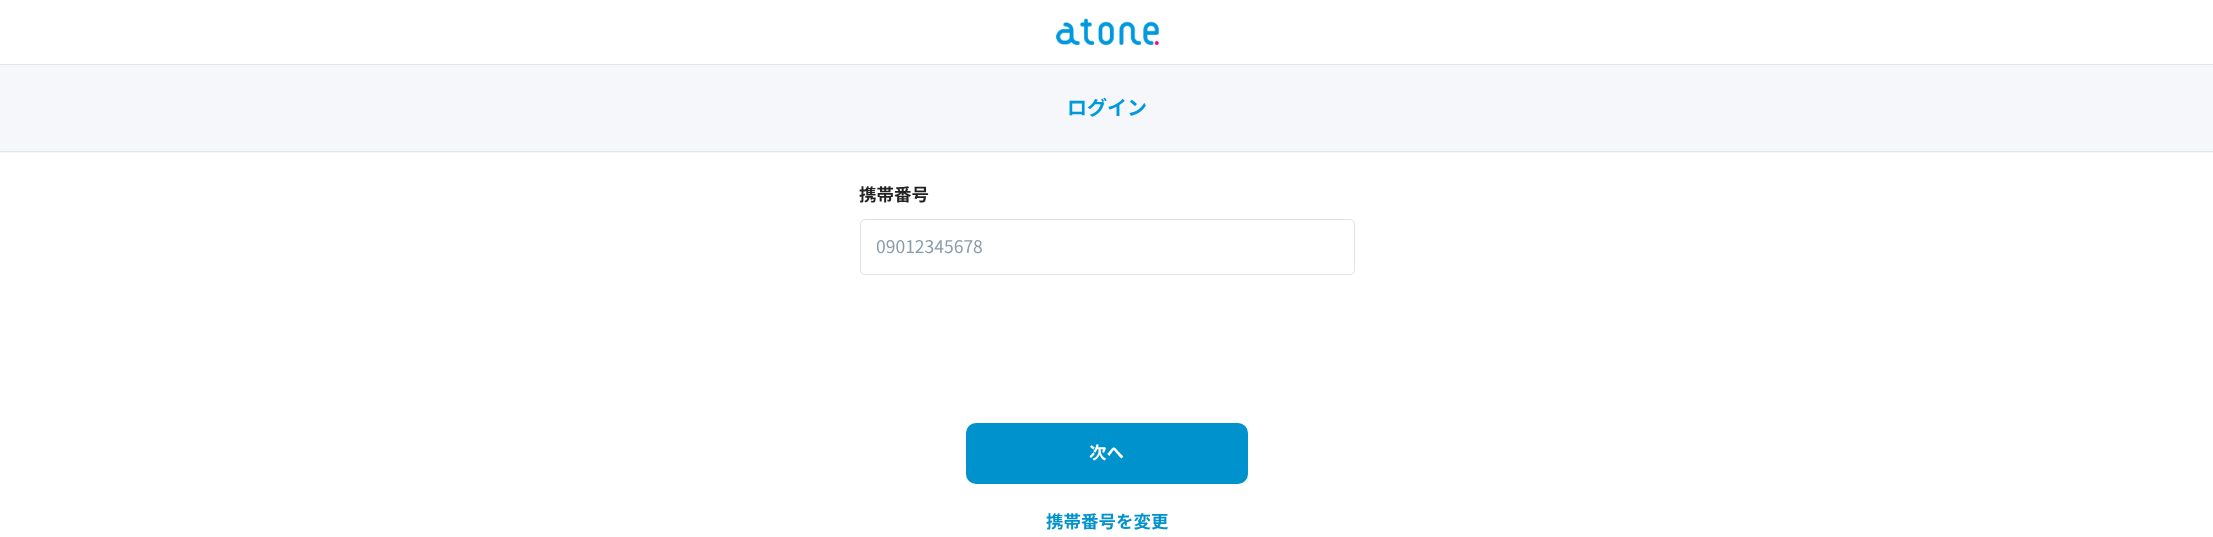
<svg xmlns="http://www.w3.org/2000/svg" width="2213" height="537">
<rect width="100%" height="100%" fill="#fff"/>
<rect y="64" width="2213" height="1" fill="#e4e4e4"/>
<image x="1056" y="18" width="103" height="27" href="media/1.png"/>
<rect y="65" width="2213" height="88" fill="#f5f7fa"/>
<rect y="151" width="2213" height="1" fill="#e4e4e4"/>
<text x="1067" y="115" style="font-family:Noto Sans CJK JP;font-size:20px;font-weight:bold;fill:#09d">ログイン</text>
<text x="859" y="201" style="font-family:Noto Sans CJK JP;font-size:17.5px;font-weight:bold;fill:#222">携帯番号</text>
<rect x="860.5" y="219.5" width="494" height="55" rx="4.5" fill="none" stroke="#e1e2e5"/>
<text x="876" y="253" style="font-family:Noto Sans CJK JP;font-size:17.5px;fill:#8a9cab">09012345678</text>
<rect x="967.5" y="424.5" width="279" height="58" rx="8.5" fill="#0092cc" stroke="#0092cc" stroke-width="3"/>
<text x="1089" y="459" style="font-family:Noto Sans CJK JP;font-size:17.5px;font-weight:bold;fill:#fff">次へ</text>
<text x="1046" y="528" style="font-family:Noto Sans CJK JP;font-size:17.5px;font-weight:bold;fill:#0092cc">携帯番号を変更</text>
</svg>
